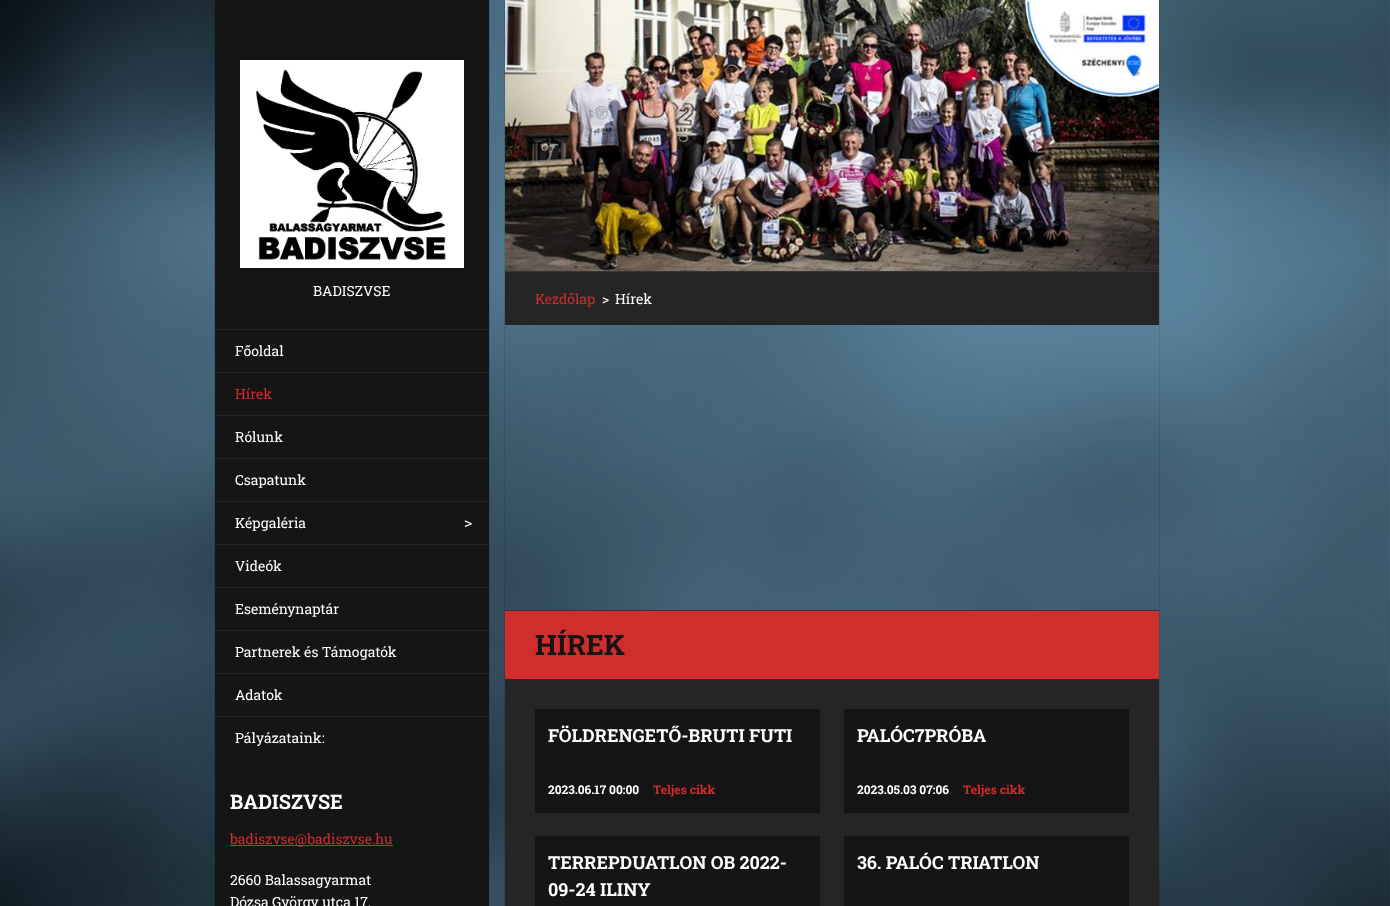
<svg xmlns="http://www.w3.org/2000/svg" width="1390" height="906">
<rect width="100%" height="100%" fill="#fff"/>
<image x="0" y="0" width="1390" height="906" href="media/1.png"/>
<rect x="215" width="274" height="906" fill="#151515"/>
<rect x="214.5" y="-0.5" width="275" height="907" fill="none" stroke="#0000001a"/>
<image x="240" y="60" width="224" height="208" href="media/2.png"/>
<text x="313" y="296" style="font-family:Roboto Slab;font-size:14px;fill:#fff">BADISZVSE</text>
<rect x="215" y="329" width="274" height="1" fill="#272727"/>
<text x="235" y="356" style="font-family:Roboto Slab;font-size:14px;fill:#fff">Főoldal</text>
<rect x="215" y="372" width="274" height="1" fill="#272727"/>
<text x="235" y="399" style="font-family:Roboto Slab;font-size:14px;fill:#d02d2d">Hírek</text>
<rect x="215" y="415" width="274" height="1" fill="#272727"/>
<text x="235" y="442" style="font-family:Roboto Slab;font-size:14px;fill:#fff">Rólunk</text>
<rect x="215" y="458" width="274" height="1" fill="#272727"/>
<text x="235" y="485" style="font-family:Roboto Slab;font-size:14px;fill:#fff">Csapatunk</text>
<rect x="215" y="501" width="274" height="1" fill="#272727"/>
<text x="235" y="528" style="font-family:Roboto Slab;font-size:14px;fill:#fff">Képgaléria</text>
<text x="464" y="528" style="font-family:Roboto Slab;font-size:16px;fill:#fff">&gt;</text>
<rect x="215" y="544" width="274" height="1" fill="#272727"/>
<text x="235" y="571" style="font-family:Roboto Slab;font-size:14px;fill:#fff">Videók</text>
<rect x="215" y="587" width="274" height="1" fill="#272727"/>
<text x="235" y="614" style="font-family:Roboto Slab;font-size:14px;fill:#fff">Eseménynaptár</text>
<rect x="215" y="630" width="274" height="1" fill="#272727"/>
<text x="235" y="657" style="font-family:Roboto Slab;font-size:14px;fill:#fff">Partnerek és Támogatók</text>
<rect x="215" y="673" width="274" height="1" fill="#272727"/>
<text x="235" y="700" style="font-family:Roboto Slab;font-size:14px;fill:#fff">Adatok</text>
<rect x="215" y="716" width="274" height="1" fill="#272727"/>
<text x="235" y="743" style="font-family:Roboto Slab;font-size:14px;fill:#fff">Pályázataink:</text>
<text x="230" y="809" style="font-family:Roboto Slab;font-size:20px;font-weight:bold;fill:#fff">BADISZVSE</text>
<rect x="230" y="845" width="163" height="1" fill="#d02d2d"/>
<text x="230" y="844" style="font-family:Roboto Slab;font-size:14px;fill:#d02d2d">badiszvse@badiszvse.hu</text>
<text x="230" y="885" style="font-family:Roboto Slab;font-size:14px;fill:#fff">2660 Balassagyarmat</text>
<text x="230" y="907" style="font-family:Roboto Slab;font-size:14px;fill:#fff">Dózsa György utca 17.</text>
<image x="505" y="0" width="654" height="271" href="media/3.png"/>
<rect x="505" y="272" width="654" height="53" fill="#252525"/>
<rect x="505" y="271" width="654" height="1" fill="#353535"/>
<rect x="504.5" y="-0.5" width="655" height="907" fill="none" stroke="#0000001a"/>
<text x="535" y="304" style="font-family:Roboto Slab;font-size:14px;fill:#d02d2d">Kezdőlap</text>
<text x="602" y="304" style="font-family:Roboto Slab;font-size:14px;fill:#fff">&gt;</text>
<text x="615" y="304" style="font-family:Roboto Slab;font-size:14px;fill:#fff">Hírek</text>
<rect x="505" y="610" width="654" height="1" fill="#353535"/>
<rect x="505" y="611" width="654" height="68" fill="#d02d2d"/>
<text x="535" y="655" style="font-family:Roboto Slab;font-size:28px;font-weight:bold;fill:#151515">HÍREK</text>
<rect x="505" y="679" width="654" height="227" fill="#252525"/>
<rect x="535" y="709" width="285" height="104" fill="#151515"/>
<text x="548" y="742" style="font-family:Roboto Slab;font-size:18px;font-weight:bold;fill:#fff">FÖLDRENGETŐ-BRUTI FUTI</text>
<text x="548" y="794" style="font-family:Roboto Slab;font-size:12px;font-weight:bold;fill:#fff">2023.06.17 00:00</text>
<text x="653" y="794" style="font-family:Roboto Slab;font-size:12px;font-weight:bold;fill:#d02d2d">Teljes cikk</text>
<rect x="844" y="709" width="285" height="104" fill="#151515"/>
<text x="857" y="742" style="font-family:Roboto Slab;font-size:18px;font-weight:bold;fill:#fff">PALÓC7PRÓBA</text>
<text x="857" y="794" style="font-family:Roboto Slab;font-size:12px;font-weight:bold;fill:#fff">2023.05.03 07:06</text>
<text x="963" y="794" style="font-family:Roboto Slab;font-size:12px;font-weight:bold;fill:#d02d2d">Teljes cikk</text>
<rect x="535" y="836" width="285" height="70" fill="#151515"/>
<text x="548" y="869" style="font-family:Roboto Slab;font-size:18px;font-weight:bold;fill:#fff">TERREPDUATLON OB 2022-</text>
<text x="548" y="896" style="font-family:Roboto Slab;font-size:18px;font-weight:bold;fill:#fff">09-24 ILINY</text>
<rect x="844" y="836" width="285" height="70" fill="#151515"/>
<text x="857" y="869" style="font-family:Roboto Slab;font-size:18px;font-weight:bold;fill:#fff">36. PALÓC TRIATLON</text>
</svg>
